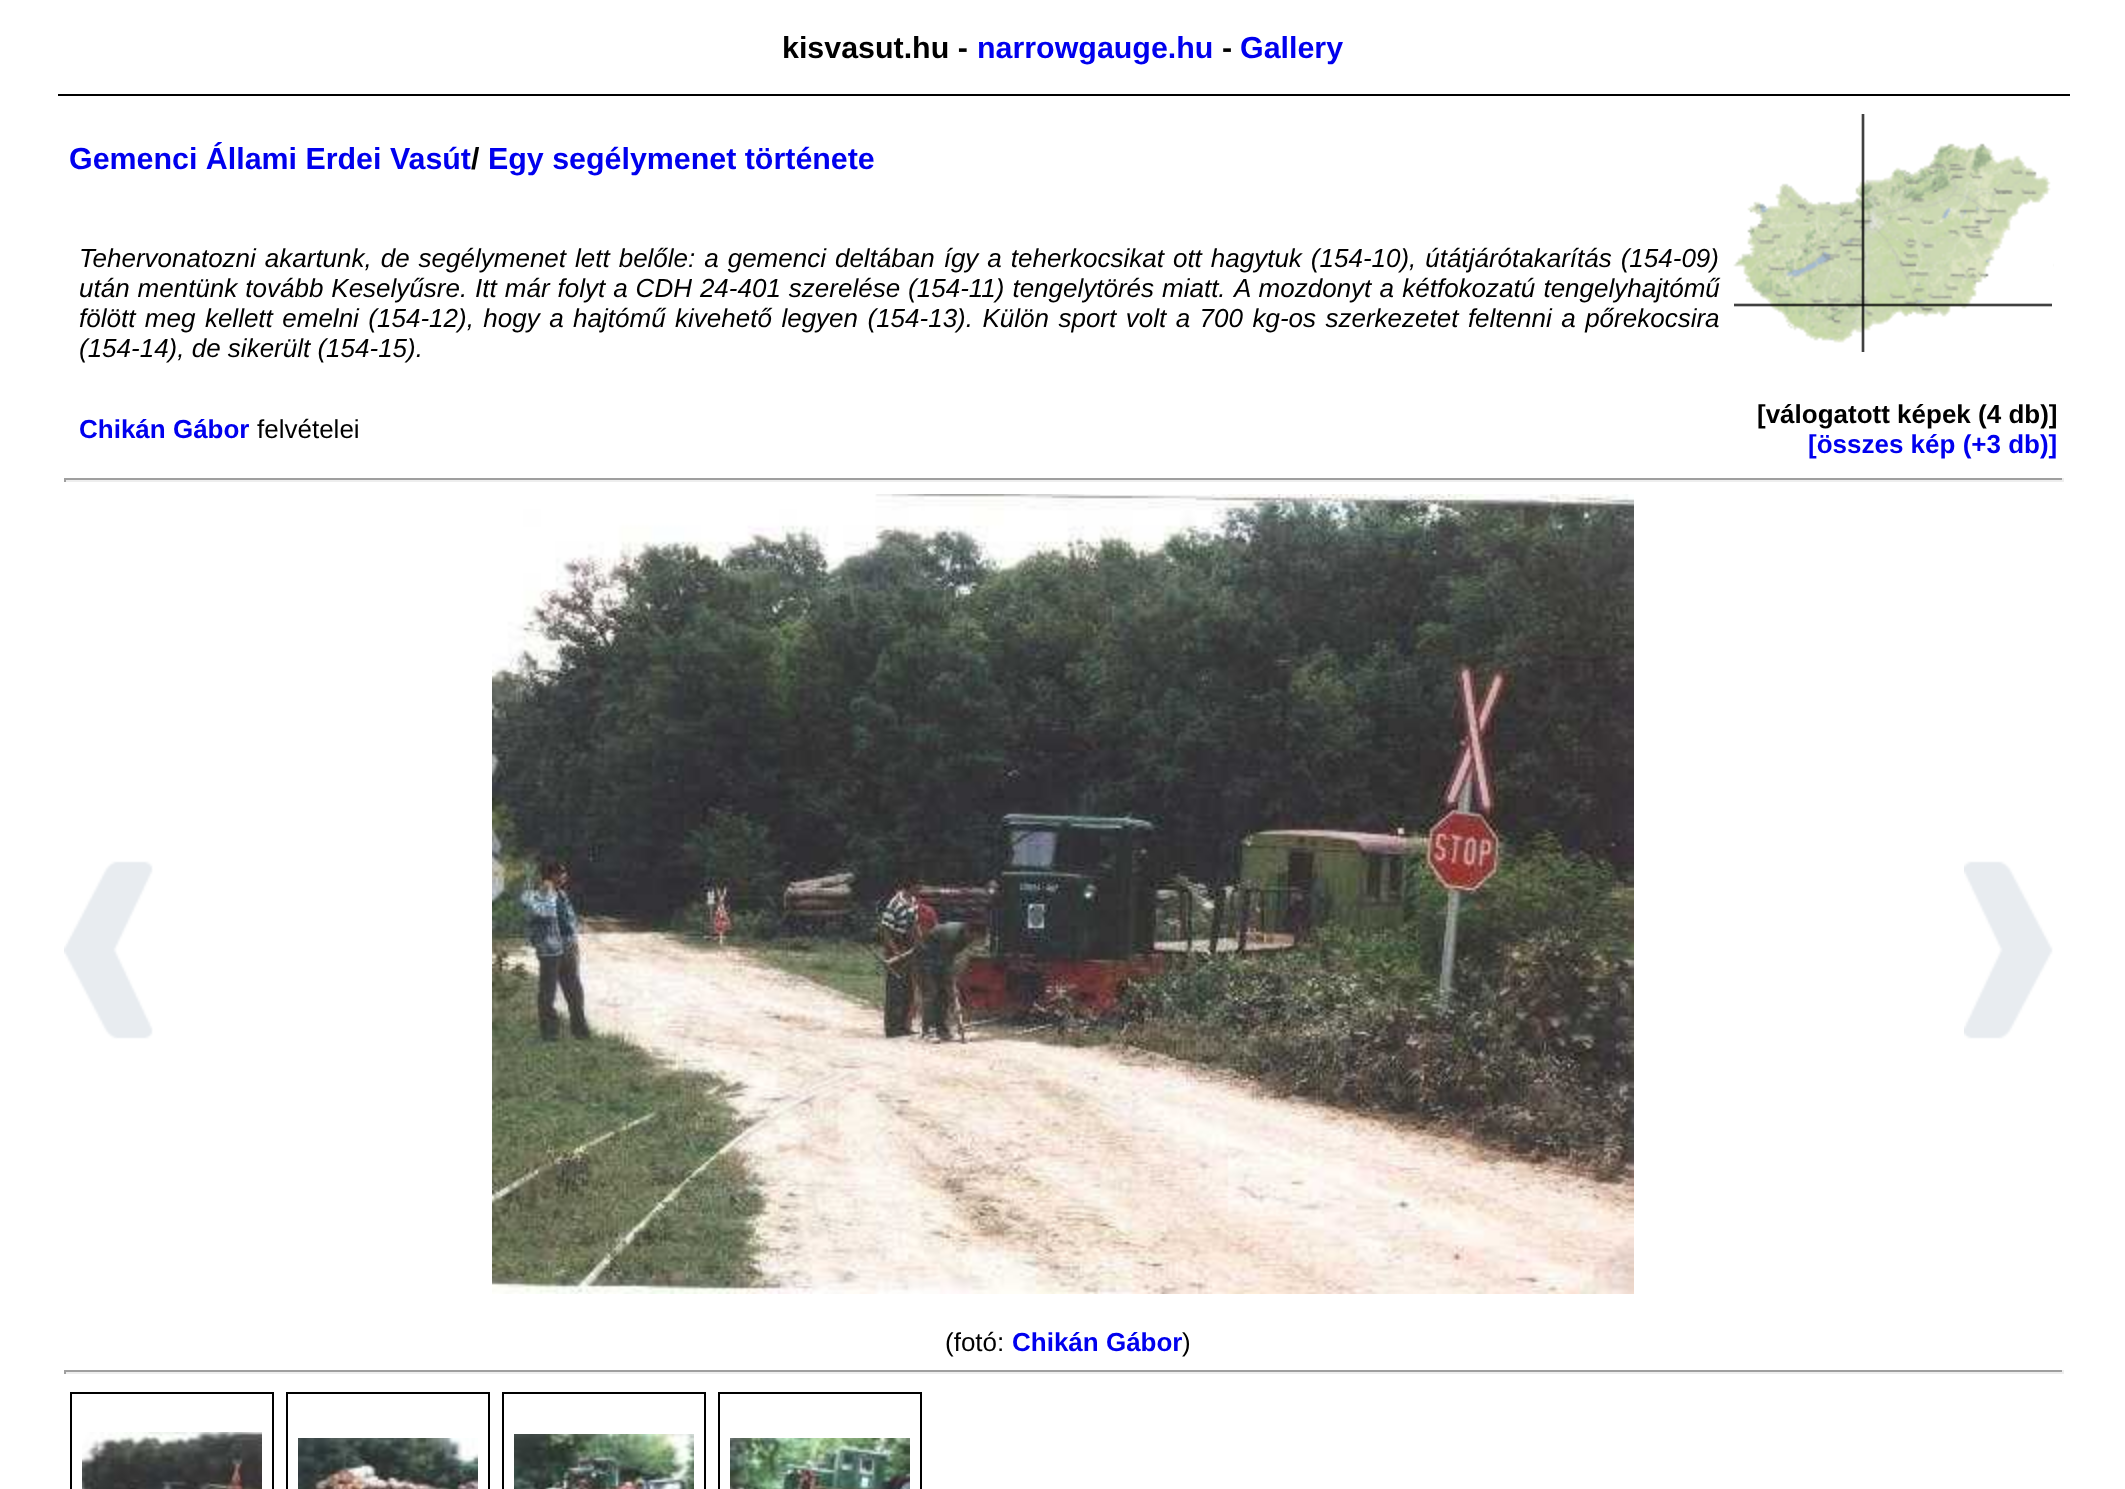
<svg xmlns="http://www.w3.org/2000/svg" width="2125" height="1489">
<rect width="100%" height="100%" fill="#fff"/>
<rect x="58" y="94" width="2012" height="2" fill="#000"/>
<text x="782" y="58" style="font-family:Liberation Sans;font-size:30.4px;font-weight:bold;fill:#000">kisvasut.hu -</text>
<text x="977" y="58" style="font-family:Liberation Sans;font-size:30.4px;font-weight:bold;fill:#00e">narrowgauge.hu</text>
<text x="1222" y="58" style="font-family:Liberation Sans;font-size:30.4px;font-weight:bold;fill:#000">-</text>
<text x="1240" y="58" style="font-family:Liberation Sans;font-size:30.4px;font-weight:bold;fill:#00e">Gallery</text>
<text x="69" y="169" style="font-family:Liberation Sans;font-size:30.4px;font-weight:bold;fill:#00e">Gemenci Állami Erdei Vasút</text>
<text x="471" y="169" style="font-family:Liberation Sans;font-size:30.4px;font-weight:bold;fill:#000">/</text>
<text x="488" y="169" style="font-family:Liberation Sans;font-size:30.4px;font-weight:bold;fill:#00e">Egy segélymenet története</text>
<image x="1733" y="143" width="321" height="200" href="media/1.png"/>
<image x="1734" y="114" width="318" height="238" href="media/2.png"/>
<text x="79" y="267" word-spacing="1.75" style="font-family:Liberation Sans;font-size:26px;font-style:italic;fill:#000">Tehervonatozni akartunk, de segélymenet lett belőle: a gemenci deltában így a teherkocsikat ott hagytuk (154-10), útátjárótakarítás (154-09)</text>
<text x="79" y="297" word-spacing="0.75" style="font-family:Liberation Sans;font-size:26px;font-style:italic;fill:#000">után mentünk tovább Keselyűsre. Itt már folyt a CDH 24-401 szerelése (154-11) tengelytörés miatt.</text>
<text x="1234" y="297" word-spacing="1" style="font-family:Liberation Sans;font-size:26px;font-style:italic;fill:#000">A mozdonyt a kétfokozatú tengelyhajtómű</text>
<text x="79" y="327" word-spacing="2.25" style="font-family:Liberation Sans;font-size:26px;font-style:italic;fill:#000">fölött meg kellett emelni (154-12), hogy a hajtómű kivehető legyen (154-13). Külön sport volt a 700 kg-os szerkezetet feltenni a pőrekocsira</text>
<text x="79" y="357" style="font-family:Liberation Sans;font-size:26px;font-style:italic;fill:#000">(154-14), de sikerült (154-15).</text>
<text x="79" y="438" style="font-family:Liberation Sans;font-size:26px;font-weight:bold;fill:#00e">Chikán Gábor</text>
<text x="257" y="438" style="font-family:Liberation Sans;font-size:26px;fill:#000">felvételei</text>
<text x="1757" y="423" style="font-family:Liberation Sans;font-size:26px;font-weight:bold;fill:#000">[válogatott képek (4 db)]</text>
<text x="1808" y="453" style="font-family:Liberation Sans;font-size:26px;font-weight:bold;fill:#00e">[összes kép (+3 db)]</text>
<rect x="64" y="478" width="2000" height="2" fill="#9f9f9f"/>
<rect x="2062" y="478" width="2" height="4" fill="#eee"/>
<rect x="64" y="480" width="2000" height="2" fill="#eee"/>
<rect x="64" y="478" width="2" height="4" fill="#9f9f9f"/>
<image x="64" y="861" width="89" height="178" href="media/3.png"/>
<image x="492" y="494" width="1142" height="800" href="media/4.png"/>
<image x="1964" y="861" width="89" height="178" href="media/5.png"/>
<text x="945" y="1351" style="font-family:Liberation Sans;font-size:26px;fill:#000">(fotó:</text>
<text x="1012" y="1351" style="font-family:Liberation Sans;font-size:26px;font-weight:bold;fill:#00e">Chikán Gábor</text>
<text x="1182" y="1351" style="font-family:Liberation Sans;font-size:26px;fill:#000">)</text>
<rect x="64" y="1370" width="2000" height="2" fill="#9f9f9f"/>
<rect x="2062" y="1370" width="2" height="4" fill="#eee"/>
<rect x="64" y="1372" width="2000" height="2" fill="#eee"/>
<rect x="64" y="1370" width="2" height="4" fill="#9f9f9f"/>
<rect x="71" y="1393" width="202" height="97" fill="none" stroke="#000" stroke-width="2"/>
<image x="82" y="1432" width="180" height="57" href="media/6.png"/>
<rect x="287" y="1393" width="202" height="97" fill="none" stroke="#000" stroke-width="2"/>
<image x="298" y="1438" width="180" height="51" href="media/7.png"/>
<rect x="503" y="1393" width="202" height="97" fill="none" stroke="#000" stroke-width="2"/>
<image x="514" y="1434" width="180" height="55" href="media/8.png"/>
<rect x="719" y="1393" width="202" height="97" fill="none" stroke="#000" stroke-width="2"/>
<image x="730" y="1438" width="180" height="51" href="media/9.png"/>
</svg>
